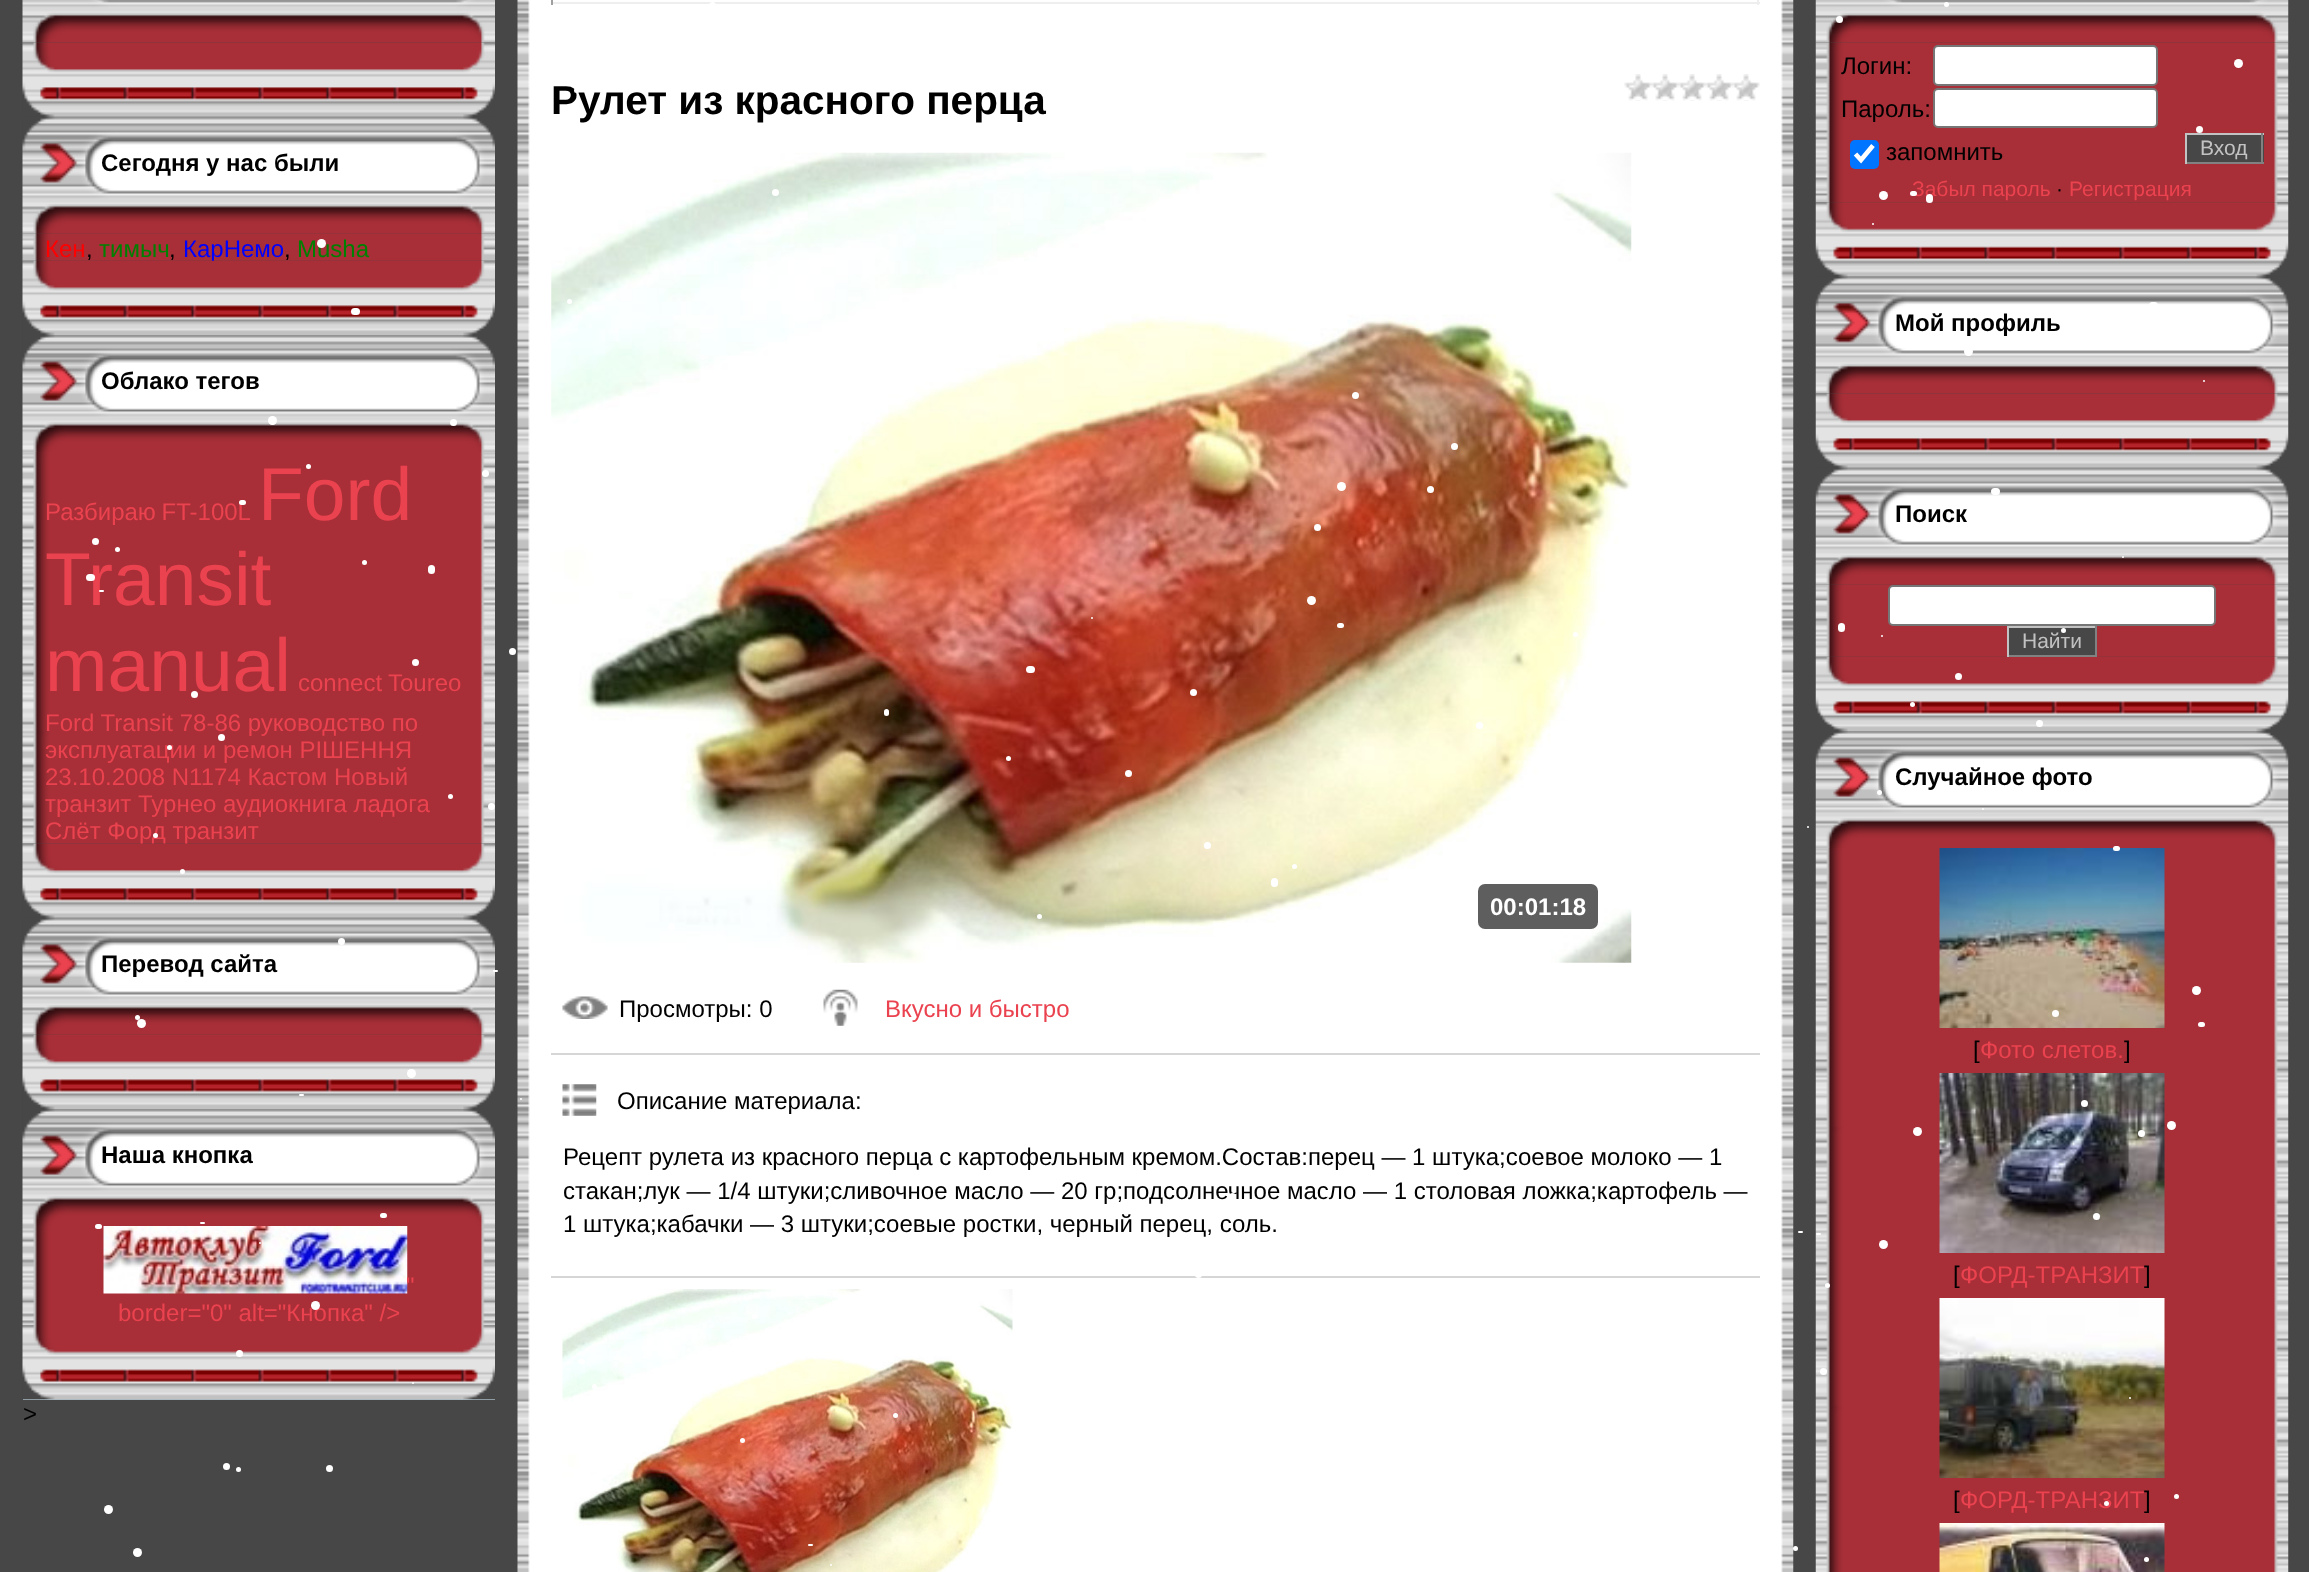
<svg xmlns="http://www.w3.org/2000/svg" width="2309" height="1572">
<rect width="100%" height="100%" fill="#474747"/>
<rect x="551" width="1209" height="1572" fill="#fff"/>
<rect x="1757" width="2" height="5" fill="#eee"/>
<rect x="551" y="2" width="1209" height="2" fill="#eee"/>
<circle cx="712.5" cy="5.5" r="3.5" fill="#fff"/>
<image x="1815" y="0" width="474" height="43" href="media/22.png"/>
<circle cx="1946.5" cy="4.5" r="2.5" fill="#fff"/>
<circle cx="1839.5" cy="19.5" r="3.5" fill="#fff"/>
<image x="22" y="0" width="473" height="43" href="media/1.png"/>
<image x="22" y="116" width="473" height="118" href="media/3.png"/>
<image x="22" y="42" width="473" height="75" href="media/2.png"/>
<text x="101" y="171" style="font-family:Liberation Sans;font-size:24px;font-weight:bold;fill:#000">Сегодня у нас были</text>
<image x="22" y="233" width="473" height="28" href="media/4.png"/>
<text x="45" y="257" style="font-family:Liberation Sans;font-size:24px;fill:#f00">Кен</text>
<text x="86" y="257" style="font-family:Liberation Sans;font-size:24px;fill:#000">,</text>
<text x="99" y="257" style="font-family:Liberation Sans;font-size:24px;fill:#008000">тимыч</text>
<text x="169" y="257" style="font-family:Liberation Sans;font-size:24px;fill:#000">,</text>
<text x="183" y="257" style="font-family:Liberation Sans;font-size:24px;fill:#00f">КарНемо</text>
<text x="284" y="257" style="font-family:Liberation Sans;font-size:24px;fill:#000">,</text>
<text x="297" y="257" style="font-family:Liberation Sans;font-size:24px;fill:#008000">Musha</text>
<image x="22" y="260" width="473" height="75" href="media/5.png"/>
<image x="22" y="335" width="473" height="117" href="media/6.png"/>
<text x="101" y="389" style="font-family:Liberation Sans;font-size:24px;font-weight:bold;fill:#000">Облако тегов</text>
<image x="22" y="452" width="473" height="392" href="media/7.png"/>
<text x="45" y="520" word-spacing="-1" style="font-family:Liberation Sans;font-size:24px;fill:#ea424e">Разбираю FT-100L</text>
<text x="258" y="520" style="font-family:Liberation Sans;font-size:75px;fill:#ea424e">Ford</text>
<text x="45" y="605" style="font-family:Liberation Sans;font-size:75px;fill:#ea424e">Transit</text>
<text x="45" y="691" style="font-family:Liberation Sans;font-size:75px;fill:#ea424e">manual</text>
<text x="298" y="691" style="font-family:Liberation Sans;font-size:24px;fill:#ea424e">connect</text>
<text x="388" y="691" style="font-family:Liberation Sans;font-size:24px;fill:#ea424e">Toureo</text>
<text x="45" y="731" style="font-family:Liberation Sans;font-size:24px;fill:#ea424e">Ford Transit 78-86 руководство по</text>
<text x="45" y="758" style="font-family:Liberation Sans;font-size:24px;fill:#ea424e">эксплуатации и ремон РІШЕННЯ</text>
<text x="45" y="785" style="font-family:Liberation Sans;font-size:24px;fill:#ea424e">23.10.2008 N1174 Кастом Новый</text>
<text x="45" y="812" style="font-family:Liberation Sans;font-size:24px;fill:#ea424e">транзит Турнео аудиокнига ладога</text>
<text x="45" y="839" style="font-family:Liberation Sans;font-size:24px;fill:#ea424e">Слёт Форд транзит</text>
<image x="22" y="917" width="473" height="118" href="media/9.png"/>
<image x="22" y="843" width="473" height="75" href="media/8.png"/>
<text x="101" y="972" style="font-family:Liberation Sans;font-size:24px;font-weight:bold;fill:#000">Перевод сайта</text>
<image x="22" y="1034" width="473" height="75" href="media/10.png"/>
<rect x="23" y="1399" width="472" height="1" fill="#a9b8c2"/>
<image x="22" y="1109" width="473" height="117" href="media/6.png"/>
<text x="101" y="1163" style="font-family:Liberation Sans;font-size:24px;font-weight:bold;fill:#000">Наша кнопка</text>
<image x="22" y="1226" width="473" height="99" href="media/11.png"/>
<image x="103" y="1226" width="305" height="68" href="media/12.png"/>
<text x="406" y="1294" style="font-family:Liberation Sans;font-size:24px;fill:#ea424e">"</text>
<text x="118" y="1321" style="font-family:Liberation Sans;font-size:24px;fill:#ea424e">border="0" alt="Кнопка" /&gt;</text>
<image x="22" y="1325" width="473" height="75" href="media/13.png"/>
<text x="23" y="1422" style="font-family:Liberation Sans;font-size:24px;fill:#000">&gt;</text>
<image x="517" y="0" width="34" height="1572" href="media/14.png"/>
<rect x="551" width="2" height="5" fill="#9f9f9f"/>
<text x="551" y="114" style="font-family:Liberation Sans;font-size:40.5px;font-weight:bold;fill:#000">Рулет из красного перца</text>
<image x="1624" y="74" width="136" height="27" href="media/15.png"/>
<image x="551" y="152" width="1081" height="811" href="media/16.png"/>
<rect x="1478" y="884" width="120" height="45" rx="7" fill="#5e5e5e"/>
<text x="1490" y="915" style="font-family:Liberation Sans;font-size:24px;font-weight:bold;fill:#fff">00:01:18</text>
<image x="562" y="996" width="46" height="23" href="media/17.png"/>
<text x="619" y="1017" style="font-family:Liberation Sans;font-size:24px;fill:#000">Просмотры: 0</text>
<image x="823" y="989" width="35" height="37" href="media/18.png"/>
<text x="885" y="1017" style="font-family:Liberation Sans;font-size:24px;fill:#ea424e">Вкусно и быстро</text>
<rect x="551" y="1053" width="1209" height="2" fill="#d6d6d6"/>
<image x="562" y="1084" width="35" height="32" href="media/19.png"/>
<text x="617" y="1109" style="font-family:Liberation Sans;font-size:24px;fill:#000">Описание материала:</text>
<text x="563" y="1165" style="font-family:Liberation Sans;font-size:24px;fill:#000">Рецепт рулета из красного перца с картофельным кремом.Состав:перец — 1 штука;соевое молоко — 1</text>
<text x="563" y="1199" style="font-family:Liberation Sans;font-size:24px;fill:#000">стакан;лук — 1/4 штуки;сливочное масло — 20 гр;подсолнечное масло — 1 столовая ложка;картофель —</text>
<text x="563" y="1232" style="font-family:Liberation Sans;font-size:24px;fill:#000">1 штука;кабачки — 3 штуки;соевые ростки, черный перец, соль.</text>
<rect x="551" y="1276" width="1209" height="2" fill="#d6d6d6"/>
<image x="562" y="1289" width="451" height="283" href="media/20.png"/>
<image x="1760" y="0" width="34" height="1572" href="media/21.png"/>
<image x="1815" y="42" width="474" height="161" href="media/23.png"/>
<text x="1841" y="74" style="font-family:Liberation Sans;font-size:24px;fill:#000">Логин:</text>
<rect x="1934" y="46" width="223" height="39" rx="4" fill="#fff" stroke="#767676" stroke-width="2"/>
<text x="1841" y="117" style="font-family:Liberation Sans;font-size:24px;fill:#000">Пароль:</text>
<rect x="1934" y="89" width="223" height="38" rx="4" fill="#fff" stroke="#767676" stroke-width="2"/>
<rect x="1850" y="140" width="29" height="29" rx="5" fill="#0075ff"/>
<path d="M1855.5 154l5.5 6l12-14.5" fill="none" stroke="#fff" stroke-width="4.7"/>
<text x="1886" y="160" style="font-family:Liberation Sans;font-size:24px;fill:#000">запомнить</text>
<rect x="2187" y="135" width="77" height="27" fill="#474747"/>
<rect x="2185" y="133" width="79" height="2" fill="#c2c2c2"/>
<rect x="2261" y="133" width="2" height="31" fill="#818181"/>
<rect x="2185" y="162" width="79" height="2" fill="#818181"/>
<rect x="2185" y="133" width="2" height="31" fill="#c2c2c2"/>
<text x="2200" y="155" style="font-family:Liberation Sans;font-size:21px;fill:#c2c2c2">Вход</text>
<text x="1912" y="196" style="font-family:Liberation Sans;font-size:21px;fill:#ea424e">Забыл пароль</text>
<text x="2056" y="196" style="font-family:Liberation Sans;font-size:21px;fill:#000">·</text>
<text x="2069" y="196" style="font-family:Liberation Sans;font-size:21px;fill:#ea424e">Регистрация</text>
<image x="1815" y="276" width="474" height="118" href="media/25.png"/>
<image x="1815" y="202" width="474" height="75" href="media/24.png"/>
<text x="1895" y="331" style="font-family:Liberation Sans;font-size:24px;font-weight:bold;fill:#000">Мой профиль</text>
<image x="1815" y="467" width="474" height="118" href="media/27.png"/>
<image x="1815" y="393" width="474" height="75" href="media/26.png"/>
<text x="1895" y="522" style="font-family:Liberation Sans;font-size:24px;font-weight:bold;fill:#000">Поиск</text>
<image x="1815" y="584" width="474" height="73" href="media/28.png"/>
<rect x="1889" y="586" width="326" height="39" rx="4" fill="#fff" stroke="#767676" stroke-width="2"/>
<rect x="2009" y="628" width="86" height="27" fill="#474747"/>
<rect x="2007" y="626" width="90" height="2" fill="#c2c2c2"/>
<image x="1815" y="656" width="474" height="75" href="media/29.png"/>
<rect x="2095" y="626" width="2" height="31" fill="#818181"/>
<rect x="2007" y="655" width="90" height="2" fill="#818181"/>
<rect x="2007" y="626" width="2" height="31" fill="#c2c2c2"/>
<text x="2022" y="648" style="font-family:Liberation Sans;font-size:21px;fill:#c2c2c2">Найти</text>
<image x="1815" y="731" width="474" height="117" href="media/30.png"/>
<text x="1895" y="785" style="font-family:Liberation Sans;font-size:24px;font-weight:bold;fill:#000">Случайное фото</text>
<image x="1815" y="848" width="474" height="724" href="media/31.png"/>
<image x="1939" y="848" width="226" height="180" href="media/32.png"/>
<text x="1973" y="1058" style="font-family:Liberation Sans;font-size:24px;fill:#000">[</text>
<text x="1980" y="1058" style="font-family:Liberation Sans;font-size:24px;fill:#ea424e">Фото слетов.</text>
<text x="2124" y="1058" style="font-family:Liberation Sans;font-size:24px;fill:#000">]</text>
<image x="1939" y="1073" width="226" height="180" href="media/33.png"/>
<text x="1953" y="1283" style="font-family:Liberation Sans;font-size:24px;fill:#000">[</text>
<text x="1960" y="1283" style="font-family:Liberation Sans;font-size:24px;fill:#ea424e">ФОРД-ТРАНЗИТ</text>
<text x="2144" y="1283" style="font-family:Liberation Sans;font-size:24px;fill:#000">]</text>
<image x="1939" y="1298" width="226" height="180" href="media/34.png"/>
<text x="1953" y="1508" style="font-family:Liberation Sans;font-size:24px;fill:#000">[</text>
<text x="1960" y="1508" style="font-family:Liberation Sans;font-size:24px;fill:#ea424e">ФОРД-ТРАНЗИТ</text>
<text x="2144" y="1508" style="font-family:Liberation Sans;font-size:24px;fill:#000">]</text>
<image x="1939" y="1523" width="226" height="49" href="media/35.png"/>
<circle cx="2238.5" cy="63.5" r="4.5" fill="#fff"/>
<circle cx="576.5" cy="90.5" r="2.5" fill="#fff"/>
<circle cx="2199.5" cy="129.5" r="3.5" fill="#fff"/>
<circle cx="775.5" cy="192.5" r="3.5" fill="#fff"/>
<circle cx="1883.5" cy="195.5" r="4.5" fill="#fff"/>
<rect x="1910" y="191" width="7" height="5" rx="2.5" fill="#fff"/>
<rect x="1926" y="194" width="7" height="9" rx="3.5" fill="#fff"/>
<circle cx="1009" cy="224" r="1" fill="#fff"/>
<circle cx="1873" cy="224" r="1" fill="#fff"/>
<circle cx="321.5" cy="243.5" r="4.5" fill="#fff"/>
<circle cx="569.5" cy="301.5" r="2.5" fill="#fff"/>
<rect x="2149" y="302" width="9" height="7" rx="3.5" fill="#fff"/>
<rect x="351" y="308" width="9" height="7" rx="3.5" fill="#fff"/>
<circle cx="1968.5" cy="351.5" r="4.5" fill="#fff"/>
<circle cx="2204" cy="381" r="1" fill="#fff"/>
<circle cx="1355.5" cy="395.5" r="3.5" fill="#fff"/>
<circle cx="272.5" cy="420.5" r="4.5" fill="#fff"/>
<circle cx="453.5" cy="422.5" r="3.5" fill="#fff"/>
<circle cx="1454.5" cy="446.5" r="3.5" fill="#fff"/>
<circle cx="308.5" cy="466.5" r="2.5" fill="#fff"/>
<circle cx="485.5" cy="473.5" r="3.5" fill="#fff"/>
<circle cx="1341.5" cy="486.5" r="4.5" fill="#fff"/>
<circle cx="1430.5" cy="489.5" r="3.5" fill="#fff"/>
<rect x="1991" y="488" width="9" height="7" rx="3.5" fill="#fff"/>
<rect x="239" y="500" width="7" height="5" rx="2.5" fill="#fff"/>
<circle cx="1317.5" cy="527.5" r="3.5" fill="#fff"/>
<circle cx="95.5" cy="541.5" r="3.5" fill="#fff"/>
<circle cx="117.5" cy="549.5" r="2.5" fill="#fff"/>
<circle cx="2123" cy="557" r="1" fill="#fff"/>
<circle cx="364.5" cy="562.5" r="2.5" fill="#fff"/>
<rect x="428" y="565" width="7" height="9" rx="3.5" fill="#fff"/>
<rect x="86" y="574" width="9" height="7" rx="3.5" fill="#fff"/>
<rect x="99" y="590" width="5" height="2" rx="1" fill="#fff"/>
<circle cx="1311.5" cy="600.5" r="4.5" fill="#fff"/>
<circle cx="1092" cy="618" r="1" fill="#fff"/>
<rect x="1337" y="623" width="7" height="5" rx="2.5" fill="#fff"/>
<rect x="1838" y="623" width="7" height="9" rx="3.5" fill="#fff"/>
<circle cx="2063.5" cy="630.5" r="2.5" fill="#fff"/>
<circle cx="1575.5" cy="634.5" r="2.5" fill="#fff"/>
<circle cx="1882" cy="636" r="1" fill="#fff"/>
<circle cx="1778.5" cy="644.5" r="3.5" fill="#fff"/>
<circle cx="512.5" cy="651.5" r="3.5" fill="#fff"/>
<circle cx="415.5" cy="662.5" r="3.5" fill="#fff"/>
<rect x="1026" y="666" width="9" height="7" rx="3.5" fill="#fff"/>
<circle cx="1958.5" cy="676.5" r="3.5" fill="#fff"/>
<circle cx="194.5" cy="694.5" r="3.5" fill="#fff"/>
<circle cx="1193.5" cy="692.5" r="3.5" fill="#fff"/>
<circle cx="1912.5" cy="704.5" r="2.5" fill="#fff"/>
<rect x="884" y="709" width="5" height="7" rx="2.5" fill="#fff"/>
<circle cx="1479.5" cy="725.5" r="3.5" fill="#fff"/>
<circle cx="2039.5" cy="723.5" r="3.5" fill="#fff"/>
<circle cx="221.5" cy="737.5" r="3.5" fill="#fff"/>
<circle cx="169.5" cy="747.5" r="2.5" fill="#fff"/>
<circle cx="1008.5" cy="758.5" r="2.5" fill="#fff"/>
<circle cx="1128.5" cy="773.5" r="3.5" fill="#fff"/>
<circle cx="687.5" cy="786.5" r="3.5" fill="#fff"/>
<circle cx="1879.5" cy="792.5" r="2.5" fill="#fff"/>
<circle cx="450.5" cy="796.5" r="2.5" fill="#fff"/>
<circle cx="491.5" cy="806.5" r="3.5" fill="#fff"/>
<circle cx="1983" cy="809" r="1" fill="#fff"/>
<circle cx="1808" cy="827" r="1" fill="#fff"/>
<circle cx="155.5" cy="835.5" r="2.5" fill="#fff"/>
<circle cx="1207.5" cy="845.5" r="3.5" fill="#fff"/>
<rect x="2113" y="846" width="7" height="5" rx="2.5" fill="#fff"/>
<circle cx="1294.5" cy="866.5" r="2.5" fill="#fff"/>
<circle cx="182.5" cy="871.5" r="2.5" fill="#fff"/>
<rect x="1271" y="878" width="7" height="9" rx="3.5" fill="#fff"/>
<circle cx="1039.5" cy="916.5" r="2.5" fill="#fff"/>
<circle cx="671.5" cy="926.5" r="3.5" fill="#fff"/>
<circle cx="341.5" cy="941.5" r="3.5" fill="#fff"/>
<rect x="493" y="970" width="5" height="2" rx="1" fill="#fff"/>
<circle cx="2196.5" cy="990.5" r="4.5" fill="#fff"/>
<circle cx="2055.5" cy="1013.5" r="3.5" fill="#fff"/>
<circle cx="137.5" cy="1017.5" r="2.5" fill="#fff"/>
<circle cx="141.5" cy="1023.5" r="4.5" fill="#fff"/>
<rect x="2198" y="1022" width="7" height="5" rx="2.5" fill="#fff"/>
<circle cx="411.5" cy="1073.5" r="4.5" fill="#fff"/>
<rect x="299" y="1094" width="5" height="2" rx="1" fill="#fff"/>
<circle cx="521" cy="1099" r="1" fill="#fff"/>
<circle cx="2084.5" cy="1103.5" r="3.5" fill="#fff"/>
<circle cx="2171.5" cy="1125.5" r="4.5" fill="#fff"/>
<circle cx="1917.5" cy="1131.5" r="4.5" fill="#fff"/>
<circle cx="2141.5" cy="1133.5" r="3.5" fill="#fff"/>
<circle cx="1232.5" cy="1196.5" r="3.5" fill="#fff"/>
<circle cx="1326.5" cy="1193.5" r="3.5" fill="#fff"/>
<rect x="380" y="1213" width="7" height="5" rx="2.5" fill="#fff"/>
<circle cx="2096.5" cy="1216.5" r="3.5" fill="#fff"/>
<rect x="200" y="1222" width="5" height="2" rx="1" fill="#fff"/>
<rect x="95" y="1224" width="7" height="5" rx="2.5" fill="#fff"/>
<rect x="1798" y="1231" width="5" height="2" rx="1" fill="#fff"/>
<rect x="1816" y="1233" width="5" height="2" rx="1" fill="#fff"/>
<circle cx="260" cy="1243" r="1" fill="#fff"/>
<circle cx="1883.5" cy="1244.5" r="4.5" fill="#fff"/>
<circle cx="1198.5" cy="1274.5" r="3.5" fill="#fff"/>
<circle cx="1827.5" cy="1285.5" r="2.5" fill="#fff"/>
<circle cx="315.5" cy="1305.5" r="4.5" fill="#fff"/>
<circle cx="754.5" cy="1316.5" r="2.5" fill="#fff"/>
<circle cx="239.5" cy="1353.5" r="3.5" fill="#fff"/>
<rect x="578" y="1359" width="7" height="5" rx="2.5" fill="#fff"/>
<circle cx="1823.5" cy="1371.5" r="3.5" fill="#fff"/>
<circle cx="413" cy="1383" r="1" fill="#fff"/>
<circle cx="594.5" cy="1386.5" r="2.5" fill="#fff"/>
<circle cx="2130" cy="1398" r="1" fill="#fff"/>
<circle cx="895.5" cy="1415.5" r="2.5" fill="#fff"/>
<circle cx="742.5" cy="1440.5" r="2.5" fill="#fff"/>
<circle cx="226.5" cy="1466.5" r="3.5" fill="#fff"/>
<circle cx="238.5" cy="1469.5" r="2.5" fill="#fff"/>
<circle cx="329.5" cy="1468.5" r="3.5" fill="#fff"/>
<circle cx="2176.5" cy="1496.5" r="2.5" fill="#fff"/>
<circle cx="2106.5" cy="1503.5" r="2.5" fill="#fff"/>
<circle cx="108.5" cy="1509.5" r="4.5" fill="#fff"/>
<rect x="808" y="1544" width="5" height="2" rx="1" fill="#fff"/>
<circle cx="137.5" cy="1552.5" r="4.5" fill="#fff"/>
<circle cx="1795.5" cy="1548.5" r="2.5" fill="#fff"/>
<circle cx="2146.5" cy="1559.5" r="2.5" fill="#fff"/>
<circle cx="831" cy="1565" r="1" fill="#fff"/>
</svg>
